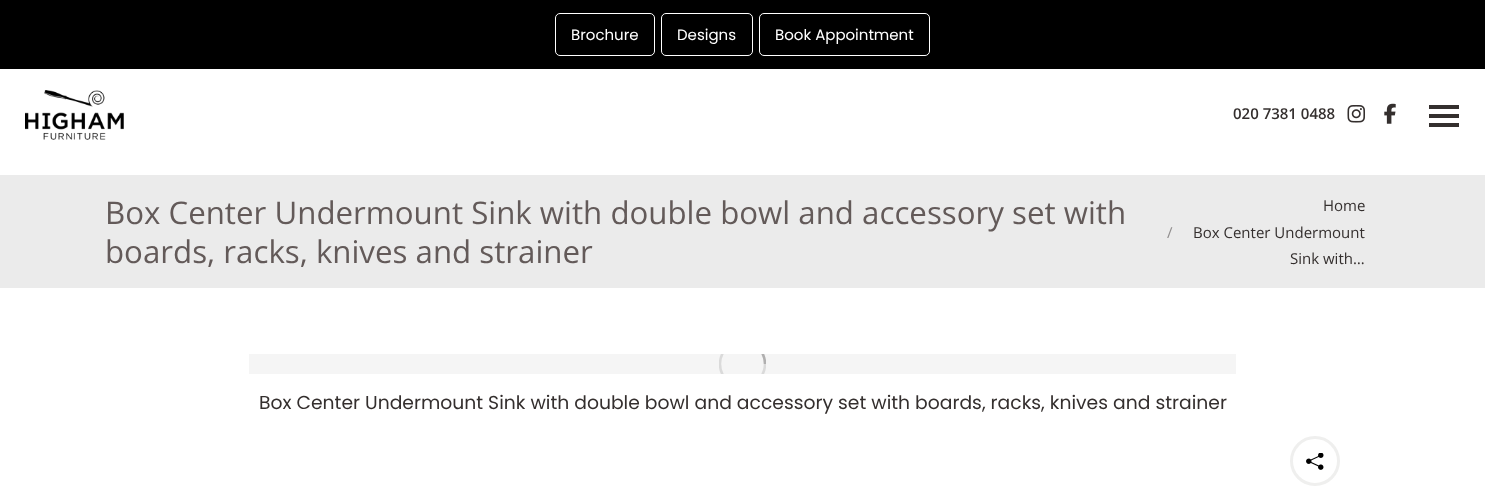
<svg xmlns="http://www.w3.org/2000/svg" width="1485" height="487">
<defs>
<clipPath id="clip1"><rect x="719" y="354" width="47" height="20"/></clipPath>
</defs>
<rect width="100%" height="100%" fill="#fff"/>
<rect width="1485" height="69" fill="#000"/>
<rect x="555.5" y="13.5" width="99" height="42" rx="4.5" fill="none" stroke="#fff"/>
<text x="571" y="40" style="font-family:Poppins;font-size:15px;fill:#fff">Brochure</text>
<rect x="661.5" y="13.5" width="91" height="42" rx="4.5" fill="none" stroke="#fff"/>
<text x="677" y="40" style="font-family:Poppins;font-size:15px;fill:#fff">Designs</text>
<rect x="759.5" y="13.5" width="170" height="42" rx="4.5" fill="none" stroke="#fff"/>
<text x="775" y="40" style="font-family:Poppins;font-size:15px;fill:#fff">Book Appointment</text>
<image x="25" y="90" width="99" height="50" href="media/1.png"/>
<text x="1233" y="119" style="font-family:Open Sans;font-size:15px;font-weight:600;fill:#342f2e">020 7381 0488</text>
<image x="1347" y="105" width="18" height="18" href="media/2.png"/>
<image x="1384" y="103" width="12" height="21" href="media/3.png"/>
<rect x="1429" y="105" width="30" height="4" fill="#342f2e"/>
<rect x="1429" y="114" width="30" height="4" fill="#342f2e"/>
<rect x="1429" y="123" width="30" height="4" fill="#342f2e"/>
<rect y="175" width="1485" height="113" fill="#ebebeb"/>
<text x="105" y="224" style="font-family:Open Sans;font-size:31.25px;fill:#635a59">Box Center Undermount Sink with double bowl and accessory set with</text>
<text x="105" y="263" style="font-family:Open Sans;font-size:31.25px;fill:#635a59">boards, racks, knives and strainer</text>
<text x="1323" y="211" style="font-family:Open Sans;font-size:15px;fill:#342f2e">Home</text>
<text x="1167" y="238" style="font-family:Open Sans;font-size:15px;fill:#908d8d">/</text>
<text x="1193" y="238" style="font-family:Open Sans;font-size:15px;fill:#342f2e">Box Center Undermount</text>
<text x="1290" y="264" style="font-family:Open Sans;font-size:15px;fill:#342f2e">Sink with…</text>
<rect x="249" y="354" width="987" height="20" fill="#f5f5f5"/>
<g clip-path="url(#clip1)">
<circle cx="742.5" cy="364" r="22.5" fill="none" stroke="#dadada" stroke-width="2.5"/>
<path d="M765 364c0-12.5-10-23-22.5-23" fill="none" stroke="#342f2e40" stroke-width="2.5"/>
</g>
<text x="259" y="409" style="font-family:Poppins;font-size:18.75px;fill:#342f2e">Box Center Undermount Sink with double bowl and accessory set with boards, racks, knives and strainer</text>
<circle cx="1315" cy="461" r="23.5" fill="none" stroke="#efefee" stroke-width="3"/>
<image x="1306" y="453" width="18" height="17" href="media/4.png"/>
</svg>
